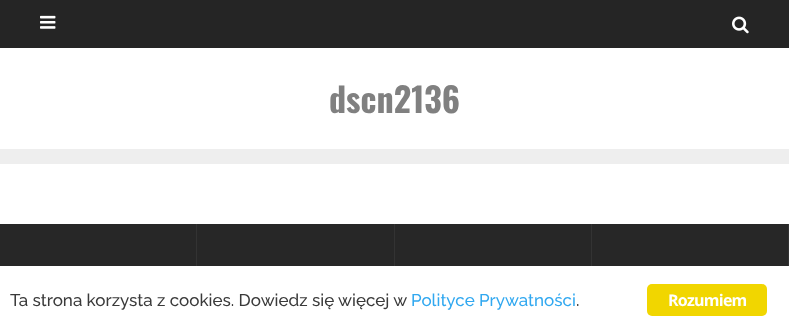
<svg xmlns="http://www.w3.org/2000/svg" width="789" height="332">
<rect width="100%" height="100%" fill="#fff"/>
<rect width="789" height="48" fill="#252525"/>
<image x="40" y="15" width="16" height="14" href="media/1.png"/>
<image x="732" y="16" width="17" height="18" href="media/2.png"/>
<text x="329" y="113" style="font-family:Oswald;font-size:34px;font-weight:bold;fill:#808080">dscn2136</text>
<rect y="149" width="789" height="15" fill="#eee"/>
<rect y="224" width="788" height="42" fill="#272727"/>
<rect x="196" y="224" width="1" height="42" fill="#333"/>
<rect x="394" y="224" width="1" height="42" fill="#333"/>
<rect x="591" y="224" width="1" height="42" fill="#333"/>
<rect x="788" y="224" width="1" height="42" fill="#333"/>
<text x="10" y="306" style="font-family:Raleway;font-size:17px;font-weight:100;fill:#3a3a3a">Ta strona korzysta z cookies. Dowiedz się więcej w</text>
<text x="411" y="306" style="font-family:Raleway;font-size:17px;font-weight:100;fill:#31a8f0">Polityce Prywatności</text>
<text x="576" y="306" style="font-family:Raleway;font-size:17px;font-weight:100;fill:#3a3a3a">.</text>
<rect x="647" y="284" width="120" height="32" rx="5" fill="#f1d600"/>
<text x="668" y="306" style="font-family:Open Sans;font-size:16px;font-weight:bold;letter-spacing:-0.75px;fill:#fff">Rozumiem</text>
</svg>
